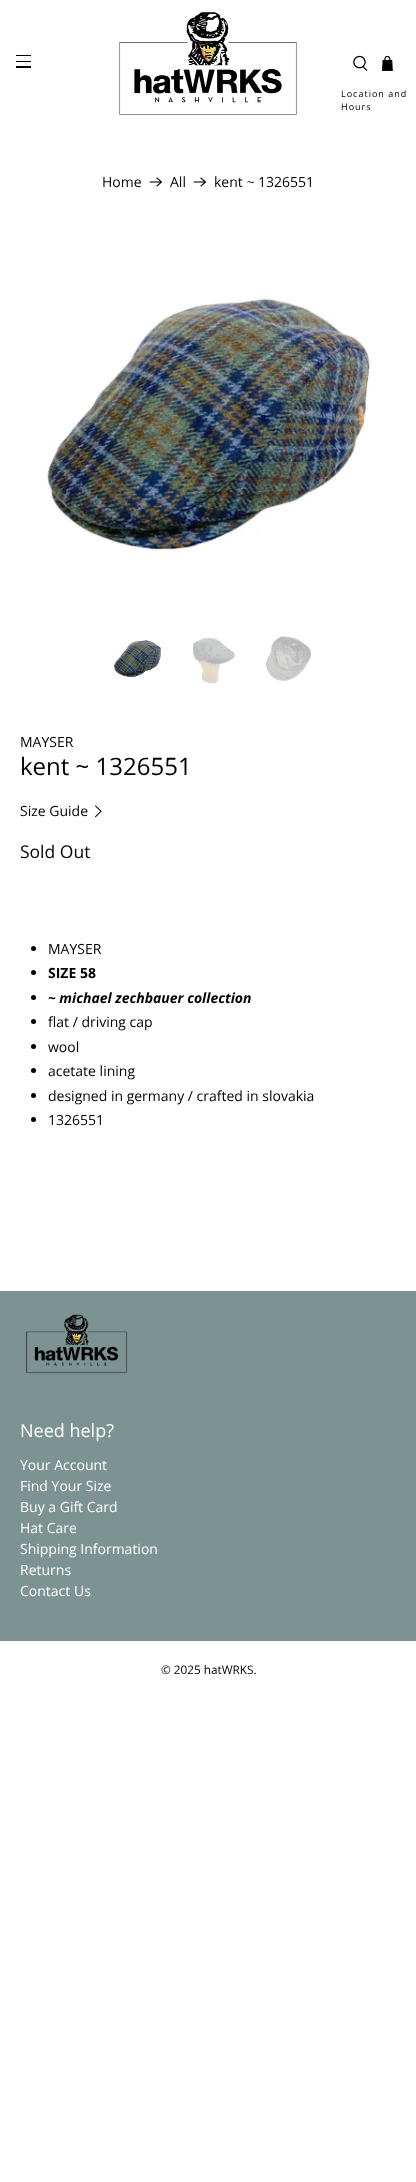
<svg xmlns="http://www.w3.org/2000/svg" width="416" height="2182">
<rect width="100%" height="100%" fill="#fff"/>
<rect x="16" y="55" width="15" height="1" fill="#000"/>
<rect x="16" y="61" width="15" height="1" fill="#000"/>
<rect x="16" y="66" width="15" height="2" fill="#000"/>
<image x="119" y="12" width="178" height="103" href="media/1.png"/>
<image x="353" y="55" width="15" height="16" href="media/2.png"/>
<image x="382" y="55" width="11" height="16" href="media/3.png"/>
<text x="341" y="97" style="font-family:Open Sans;font-size:9px;letter-spacing:1px;fill:#000">Location and</text>
<text x="341" y="110" style="font-family:Open Sans;font-size:9px;letter-spacing:1px;fill:#000">Hours</text>
<text x="102" y="187" style="font-family:Open Sans;font-size:14px;fill:#000">Home</text>
<image x="149" y="177" width="14" height="10" href="media/4.png"/>
<text x="170" y="187" style="font-family:Open Sans;font-size:14px;fill:#000">All</text>
<image x="193" y="177" width="14" height="10" href="media/4.png"/>
<text x="214" y="187" style="font-family:Open Sans;font-size:14px;fill:#000">kent ~ 1326551</text>
<image x="46" y="298" width="324" height="253" href="media/5.png"/>
<image x="114" y="640" width="47" height="37" href="media/6.png"/>
<image x="193" y="638" width="42" height="46" href="media/7.png"/>
<image x="266" y="636" width="46" height="45" href="media/8.png"/>
<text x="20" y="747" style="font-family:Open Sans;font-size:14px;fill:#000">MAYSER</text>
<text x="20" y="775" style="font-family:Open Sans;font-size:24px;fill:#000">kent ~ 1326551</text>
<text x="20" y="816" style="font-family:Open Sans;font-size:14px;fill:#000">Size Guide</text>
<image x="95" y="805" width="7" height="13" href="media/9.png"/>
<text x="20" y="858" style="font-family:Open Sans;font-size:17.5px;fill:#000">Sold Out</text>
<circle cx="33.5" cy="948.5" r="2.5" fill="#000"/>
<text x="48" y="954" style="font-family:Open Sans;font-size:14px;fill:#000">MAYSER</text>
<circle cx="33.5" cy="972.5" r="2.5" fill="#000"/>
<text x="48" y="978" style="font-family:Open Sans;font-size:14px;font-weight:bold;fill:#000">SIZE 58</text>
<circle cx="33.5" cy="997.5" r="2.5" fill="#000"/>
<text x="48" y="1003" style="font-family:Open Sans;font-size:14px;font-weight:bold;font-style:italic;fill:#000">~ michael zechbauer collection</text>
<circle cx="33.5" cy="1021.5" r="2.5" fill="#000"/>
<text x="48" y="1027" style="font-family:Open Sans;font-size:14px;fill:#000">flat / driving cap</text>
<circle cx="33.5" cy="1046.5" r="2.5" fill="#000"/>
<text x="48" y="1052" style="font-family:Open Sans;font-size:14px;fill:#000">wool</text>
<circle cx="33.5" cy="1070.5" r="2.5" fill="#000"/>
<text x="48" y="1076" style="font-family:Open Sans;font-size:14px;fill:#000">acetate lining</text>
<circle cx="33.5" cy="1095.5" r="2.5" fill="#000"/>
<text x="48" y="1101" style="font-family:Open Sans;font-size:14px;fill:#000">designed in germany / crafted in slovakia</text>
<circle cx="33.5" cy="1119.5" r="2.5" fill="#000"/>
<text x="48" y="1125" style="font-family:Open Sans;font-size:14px;fill:#000">1326551</text>
<rect y="1291" width="416" height="350" fill="#7c9392"/>
<image x="26" y="1314" width="102" height="60" href="media/10.png"/>
<text x="20" y="1437" style="font-family:Open Sans;font-size:18px;fill:#fff">Need help?</text>
<text x="20" y="1470" style="font-family:Open Sans;font-size:14px;fill:#fff">Your Account</text>
<text x="20" y="1491" style="font-family:Open Sans;font-size:14px;fill:#fff">Find Your Size</text>
<text x="20" y="1512" style="font-family:Open Sans;font-size:14px;fill:#fff">Buy a Gift Card</text>
<text x="20" y="1533" style="font-family:Open Sans;font-size:14px;fill:#fff">Hat Care</text>
<text x="20" y="1554" style="font-family:Open Sans;font-size:14px;fill:#fff">Shipping Information</text>
<text x="20" y="1575" style="font-family:Open Sans;font-size:14px;fill:#fff">Returns</text>
<text x="20" y="1596" style="font-family:Open Sans;font-size:14px;fill:#fff">Contact Us</text>
<text x="161" y="1674" style="font-family:Open Sans;font-size:11.75px;fill:#000">© 2025 hatWRKS.</text>
</svg>
